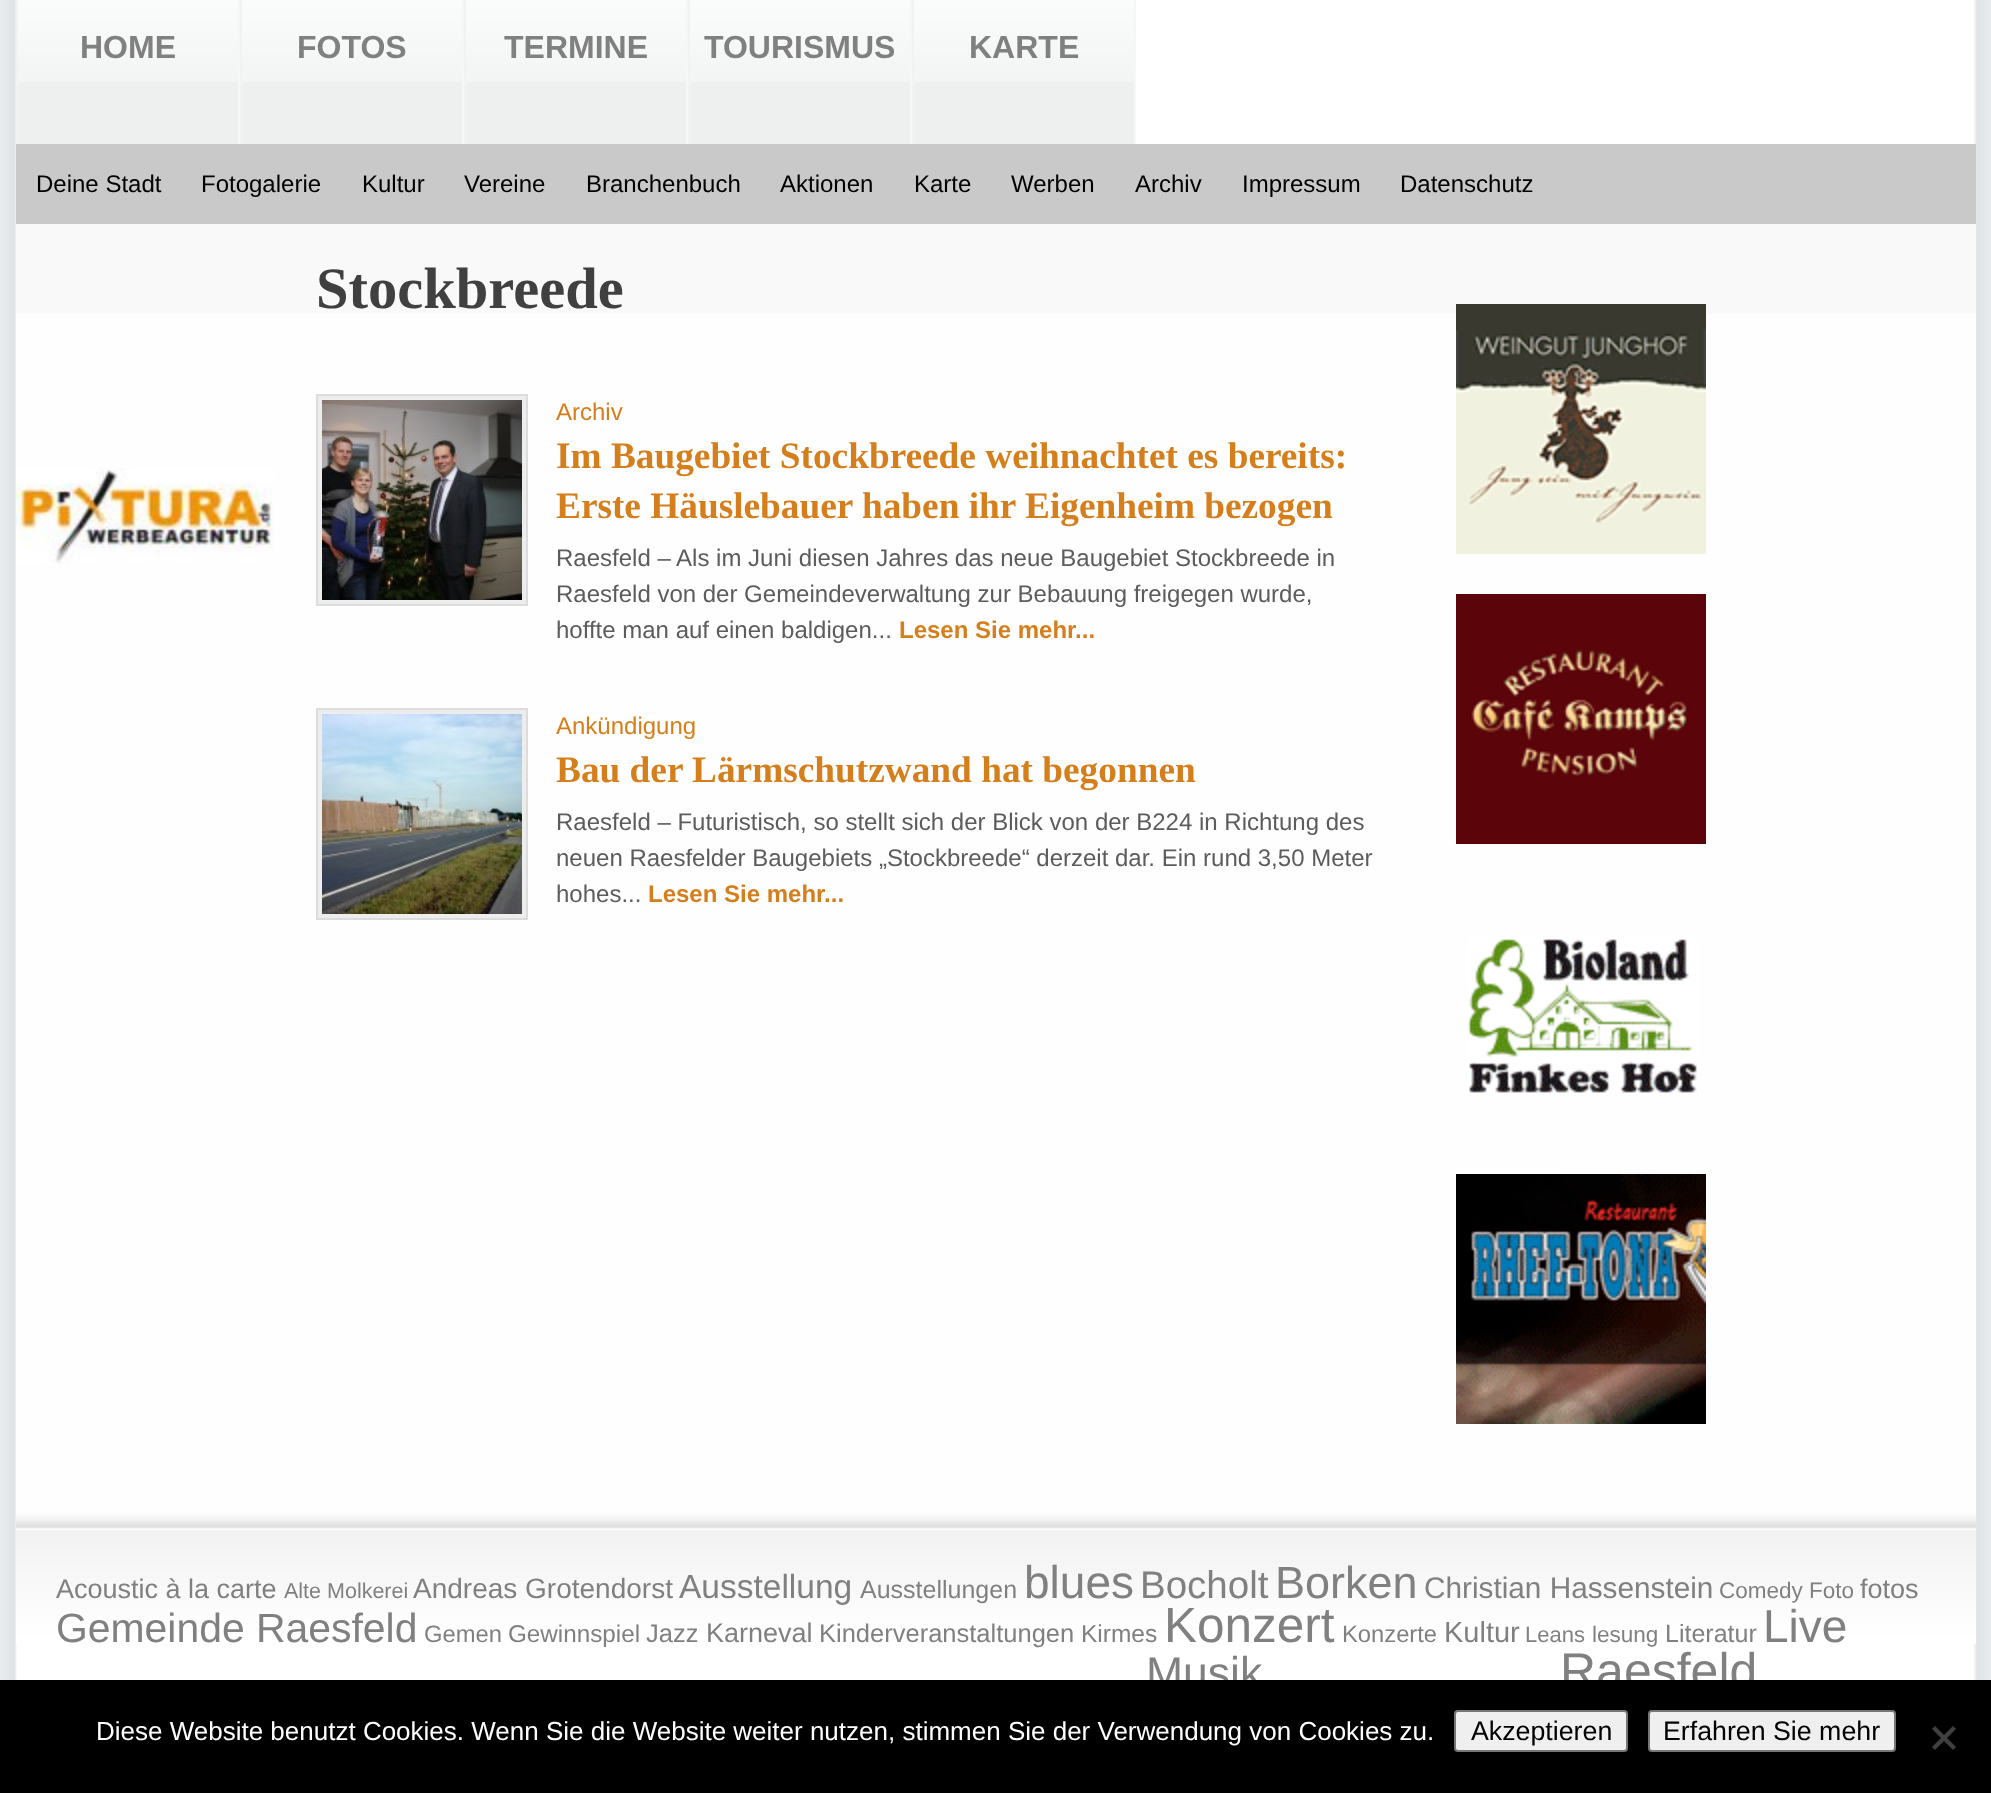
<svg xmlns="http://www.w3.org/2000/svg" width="1991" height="1793">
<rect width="100%" height="100%" fill="#fff"/>
<image x="0" y="0" width="1991" height="1680" href="media/1.png"/>
<rect x="18" y="82" width="1116" height="62" fill="#eef0f0"/>
<image x="18" y="0" width="1116" height="82" href="media/2.png"/>
<rect x="238" width="2" height="144" fill="#f6f6f7"/>
<rect x="16" width="2" height="144" fill="#f2f2f2"/>
<text x="80" y="58" style="font-family:Liberation Sans;font-size:32px;font-weight:bold;fill:#808080">HOME</text>
<rect x="462" width="2" height="144" fill="#f6f6f7"/>
<rect x="240" width="2" height="144" fill="#f2f2f2"/>
<text x="297" y="58" style="font-family:Liberation Sans;font-size:32px;font-weight:bold;fill:#808080">FOTOS</text>
<rect x="686" width="2" height="144" fill="#f6f6f7"/>
<rect x="464" width="2" height="144" fill="#f2f2f2"/>
<text x="504" y="58" style="font-family:Liberation Sans;font-size:32px;font-weight:bold;fill:#808080">TERMINE</text>
<rect x="910" width="2" height="144" fill="#f6f6f7"/>
<rect x="688" width="2" height="144" fill="#f2f2f2"/>
<text x="704" y="58" style="font-family:Liberation Sans;font-size:32px;font-weight:bold;fill:#808080">TOURISMUS</text>
<rect x="1134" width="2" height="144" fill="#f6f6f7"/>
<rect x="912" width="2" height="144" fill="#f2f2f2"/>
<text x="969" y="58" style="font-family:Liberation Sans;font-size:32px;font-weight:bold;fill:#808080">KARTE</text>
<rect x="16" y="144" width="1960" height="80" fill="#c9c9c9"/>
<text x="36" y="192" style="font-family:Liberation Sans;font-size:24px;fill:#000">Deine Stadt</text>
<text x="201" y="192" style="font-family:Liberation Sans;font-size:24px;fill:#000">Fotogalerie</text>
<text x="362" y="192" style="font-family:Liberation Sans;font-size:24px;fill:#000">Kultur</text>
<text x="464" y="192" style="font-family:Liberation Sans;font-size:24px;fill:#000">Vereine</text>
<text x="586" y="192" style="font-family:Liberation Sans;font-size:24px;fill:#000">Branchenbuch</text>
<text x="780" y="192" style="font-family:Liberation Sans;font-size:24px;fill:#000">Aktionen</text>
<text x="914" y="192" style="font-family:Liberation Sans;font-size:24px;fill:#000">Karte</text>
<text x="1011" y="192" style="font-family:Liberation Sans;font-size:24px;fill:#000">Werben</text>
<text x="1135" y="192" style="font-family:Liberation Sans;font-size:24px;fill:#000">Archiv</text>
<text x="1242" y="192" style="font-family:Liberation Sans;font-size:24px;fill:#000">Impressum</text>
<text x="1400" y="192" style="font-family:Liberation Sans;font-size:24px;fill:#000">Datenschutz</text>
<rect x="16" y="314" width="1960" height="1190" fill="#fefefe"/>
<rect x="17" y="224" width="1959" height="90" fill="#f9f9f9"/>
<image x="16" y="468" width="258" height="96" href="media/3.png"/>
<text x="316" y="308" style="font-family:Liberation Serif;font-size:58.5px;font-weight:bold;fill:#404040">Stockbreede</text>
<rect x="317" y="395" width="210" height="210" fill="#ededed" stroke="#dcdcdc" stroke-width="2"/>
<image x="322" y="400" width="200" height="200" href="media/4.png"/>
<text x="556" y="420" style="font-family:Liberation Sans;font-size:24px;fill:#d57e1c">Archiv</text>
<text x="556" y="468" style="font-family:Liberation Serif;font-size:37.3px;font-weight:bold;fill:#d57e1c">Im Baugebiet Stockbreede weihnachtet es bereits:</text>
<text x="556" y="518" style="font-family:Liberation Serif;font-size:37.3px;font-weight:bold;fill:#d57e1c">Erste Häuslebauer haben ihr Eigenheim bezogen</text>
<text x="556" y="566" style="font-family:Liberation Sans;font-size:24px;fill:#5c5c5c">Raesfeld – Als im Juni diesen Jahres das neue Baugebiet Stockbreede in</text>
<text x="556" y="602" style="font-family:Liberation Sans;font-size:24px;fill:#5c5c5c">Raesfeld von der Gemeindeverwaltung zur Bebauung freigegen wurde,</text>
<text x="556" y="638" style="font-family:Liberation Sans;font-size:24px;fill:#5c5c5c">hoffte man auf einen baldigen...</text>
<text x="899" y="638" style="font-family:Liberation Sans;font-size:24px;font-weight:bold;fill:#d57e1c">Lesen Sie mehr...</text>
<rect x="317" y="709" width="210" height="210" fill="#ededed" stroke="#dcdcdc" stroke-width="2"/>
<image x="322" y="714" width="200" height="200" href="media/5.png"/>
<text x="556" y="734" style="font-family:Liberation Sans;font-size:24px;fill:#d57e1c">Ankündigung</text>
<text x="556" y="782" style="font-family:Liberation Serif;font-size:37.3px;font-weight:bold;fill:#d57e1c">Bau der Lärmschutzwand hat begonnen</text>
<text x="556" y="830" style="font-family:Liberation Sans;font-size:24px;fill:#5c5c5c">Raesfeld – Futuristisch, so stellt sich der Blick von der B224 in Richtung des</text>
<text x="556" y="866" style="font-family:Liberation Sans;font-size:24px;fill:#5c5c5c">neuen Raesfelder Baugebiets „Stockbreede“ derzeit dar. Ein rund 3,50 Meter</text>
<text x="556" y="902" style="font-family:Liberation Sans;font-size:24px;fill:#5c5c5c">hohes...</text>
<text x="648" y="902" style="font-family:Liberation Sans;font-size:24px;font-weight:bold;fill:#d57e1c">Lesen Sie mehr...</text>
<image x="1456" y="304" width="250" height="250" href="media/6.png"/>
<image x="1456" y="594" width="250" height="250" href="media/7.png"/>
<image x="1468" y="938" width="230" height="156" href="media/8.png"/>
<image x="1456" y="1174" width="250" height="250" href="media/9.png"/>
<image x="16" y="1504" width="1960" height="140" href="media/10.png"/>
<text x="56" y="1598" style="font-family:Liberation Sans;font-size:27px;fill:#808080">Acoustic à la carte</text>
<text x="284" y="1598" style="font-family:Liberation Sans;font-size:21.5px;fill:#808080">Alte Molkerei</text>
<text x="413" y="1598" style="font-family:Liberation Sans;font-size:28px;fill:#808080">Andreas Grotendorst</text>
<text x="679" y="1598" style="font-family:Liberation Sans;font-size:33.5px;fill:#808080">Ausstellung</text>
<text x="860" y="1598" style="font-family:Liberation Sans;font-size:25px;fill:#808080">Ausstellungen</text>
<text x="1024" y="1598" style="font-family:Liberation Sans;font-size:46px;fill:#808080">blues</text>
<text x="1140" y="1598" style="font-family:Liberation Sans;font-size:38.5px;fill:#808080">Bocholt</text>
<text x="1275" y="1598" style="font-family:Liberation Sans;font-size:45px;fill:#808080">Borken</text>
<text x="1424" y="1598" style="font-family:Liberation Sans;font-size:29.75px;fill:#808080">Christian Hassenstein</text>
<text x="1719" y="1598" style="font-family:Liberation Sans;font-size:22.5px;fill:#808080">Comedy</text>
<text x="1809" y="1598" style="font-family:Liberation Sans;font-size:22.5px;fill:#808080">Foto</text>
<text x="1860" y="1598" style="font-family:Liberation Sans;font-size:27px;fill:#808080">fotos</text>
<text x="56" y="1642" style="font-family:Liberation Sans;font-size:40.9px;fill:#808080">Gemeinde Raesfeld</text>
<text x="424" y="1642" style="font-family:Liberation Sans;font-size:23.75px;fill:#808080">Gemen</text>
<text x="508" y="1642" style="font-family:Liberation Sans;font-size:24.25px;fill:#808080">Gewinnspiel</text>
<text x="646" y="1642" style="font-family:Liberation Sans;font-size:25.5px;fill:#808080">Jazz</text>
<text x="706" y="1642" style="font-family:Liberation Sans;font-size:27px;fill:#808080">Karneval</text>
<text x="819" y="1642" style="font-family:Liberation Sans;font-size:25.5px;fill:#808080">Kinderveranstaltungen</text>
<text x="1081" y="1642" style="font-family:Liberation Sans;font-size:24.5px;fill:#808080">Kirmes</text>
<text x="1164" y="1642" style="font-family:Liberation Sans;font-size:49.5px;fill:#808080">Konzert</text>
<text x="1342" y="1642" style="font-family:Liberation Sans;font-size:23.75px;fill:#808080">Konzerte</text>
<text x="1444" y="1642" style="font-family:Liberation Sans;font-size:29px;fill:#808080">Kultur</text>
<text x="1525" y="1642" style="font-family:Liberation Sans;font-size:22px;fill:#808080">Leans</text>
<text x="1592" y="1642" style="font-family:Liberation Sans;font-size:22.5px;fill:#808080">lesung</text>
<text x="1665" y="1642" style="font-family:Liberation Sans;font-size:25px;fill:#808080">Literatur</text>
<text x="1763" y="1642" style="font-family:Liberation Sans;font-size:46px;fill:#808080">Live</text>
<text x="1146" y="1688" style="font-family:Liberation Sans;font-size:44.5px;fill:#808080">Musik</text>
<text x="1560" y="1688" style="font-family:Liberation Sans;font-size:50px;fill:#808080">Raesfeld</text>
<rect y="1680" width="1991" height="113" fill="#000"/>
<text x="96" y="1740" style="font-family:Liberation Sans;font-size:26px;fill:#fff">Diese Website benutzt Cookies. Wenn Sie die Website weiter nutzen, stimmen Sie der Verwendung von Cookies zu.</text>
<rect x="1455" y="1711" width="172" height="40" rx="3" fill="#efefef" stroke="#767676" stroke-width="2"/>
<text x="1471" y="1740" style="font-family:Liberation Sans;font-size:26.75px;fill:#000">Akzeptieren</text>
<rect x="1649" y="1711" width="246" height="40" rx="3" fill="#efefef" stroke="#767676" stroke-width="2"/>
<text x="1663" y="1740" style="font-family:Liberation Sans;font-size:26.75px;fill:#000">Erfahren Sie mehr</text>
<path d="M1953 1726l3 3l-21 21l-3-3z" fill="#404040"/>
<path d="M1932 1729l3-3l21 21l-3 3z" fill="#404040"/>
</svg>
